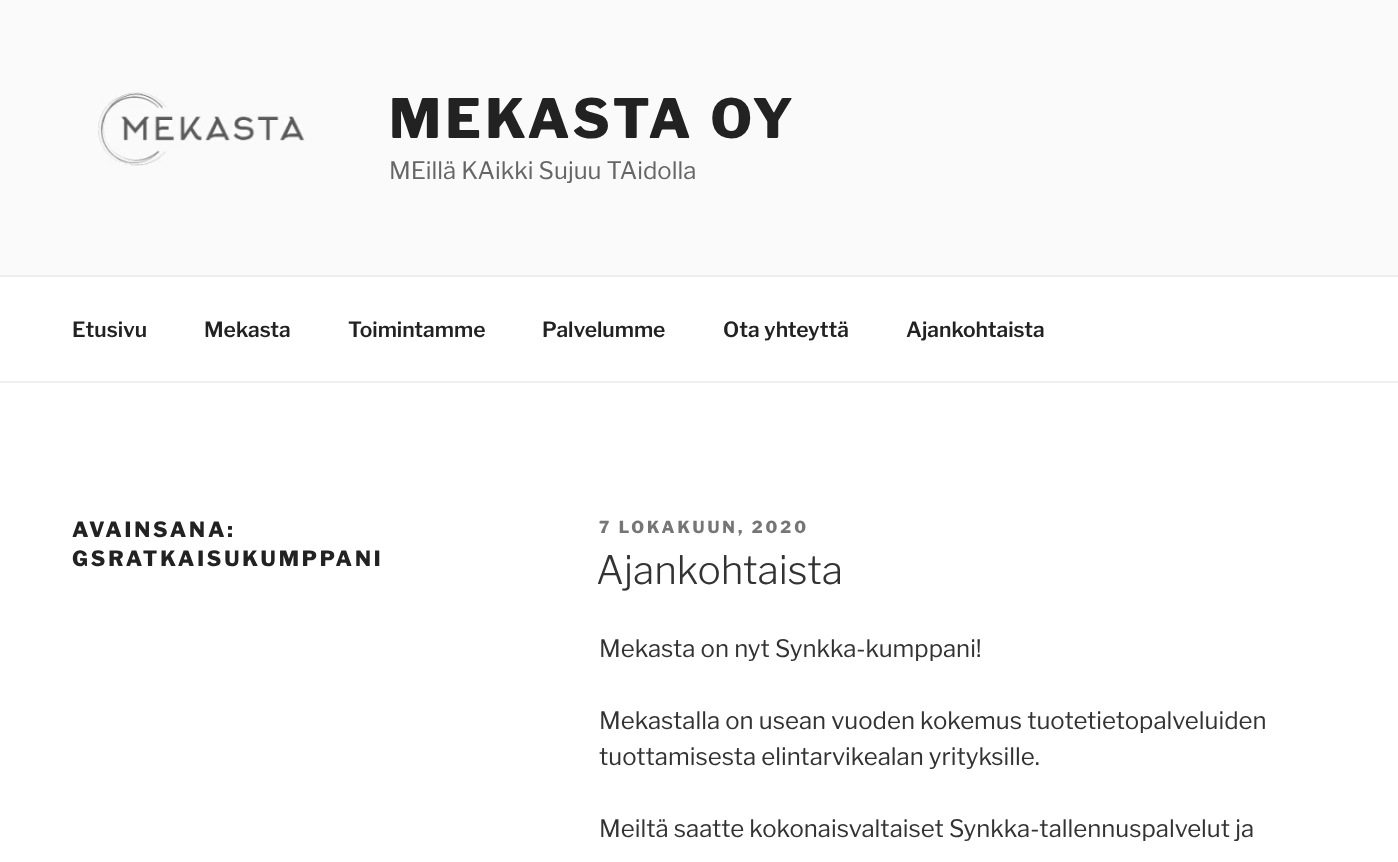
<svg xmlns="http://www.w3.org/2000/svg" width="1398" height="862">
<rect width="100%" height="100%" fill="#fff"/>
<rect width="1398" height="275" fill="#fafafa"/>
<image x="98" y="92" width="207" height="74" href="media/1.png"/>
<text x="389" y="138" style="font-family:Libre Franklin;font-size:54px;font-weight:100;letter-spacing:4.25px;fill:#222">MEKASTA OY</text>
<text x="389" y="179" style="font-family:'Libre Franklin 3';font-size:24px;font-weight:100;fill:#666">MEillä KAikki Sujuu TAidolla</text>
<rect y="275" width="1398" height="2" fill="#eee"/>
<rect y="381" width="1398" height="2" fill="#eee"/>
<text x="72" y="337" style="font-family:'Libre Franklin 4';font-size:21px;font-weight:100;fill:#222">Etusivu</text>
<text x="204" y="337" style="font-family:'Libre Franklin 4';font-size:21px;font-weight:100;fill:#222">Mekasta</text>
<text x="348" y="337" style="font-family:'Libre Franklin 4';font-size:21px;font-weight:100;fill:#222">Toimintamme</text>
<text x="542" y="337" style="font-family:'Libre Franklin 4';font-size:21px;font-weight:100;fill:#222">Palvelumme</text>
<text x="723" y="337" style="font-family:'Libre Franklin 4';font-size:21px;font-weight:100;fill:#222">Ota yhteyttä</text>
<text x="906" y="337" style="font-family:'Libre Franklin 4';font-size:21px;font-weight:100;fill:#222">Ajankohtaista</text>
<text x="72" y="537" style="font-family:Libre Franklin;font-size:21px;font-weight:100;letter-spacing:2.9px;fill:#222">AVAINSANA:</text>
<text x="72" y="566" style="font-family:Libre Franklin;font-size:21px;font-weight:100;letter-spacing:2.9px;fill:#222">GSRATKAISUKUMPPANI</text>
<text x="599" y="533" style="font-family:Libre Franklin;font-size:16.5px;font-weight:100;letter-spacing:3px;fill:#767676">7 LOKAKUUN, 2020</text>
<text x="596" y="584" style="font-family:'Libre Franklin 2';font-size:39px;font-weight:100;fill:#333">Ajankohtaista</text>
<text x="599" y="657" style="font-family:'Libre Franklin 3';font-size:24px;font-weight:100;fill:#333">Mekasta on nyt Synkka-kumppani!</text>
<text x="599" y="729" style="font-family:'Libre Franklin 3';font-size:24px;font-weight:100;fill:#333">Mekastalla on usean vuoden kokemus tuotetietopalveluiden</text>
<text x="599" y="765" style="font-family:'Libre Franklin 3';font-size:24px;font-weight:100;fill:#333">tuottamisesta elintarvikealan yrityksille.</text>
<text x="599" y="837" style="font-family:'Libre Franklin 3';font-size:24px;font-weight:100;fill:#333">Meiltä saatte kokonaisvaltaiset Synkka-tallennuspalvelut ja</text>
</svg>
